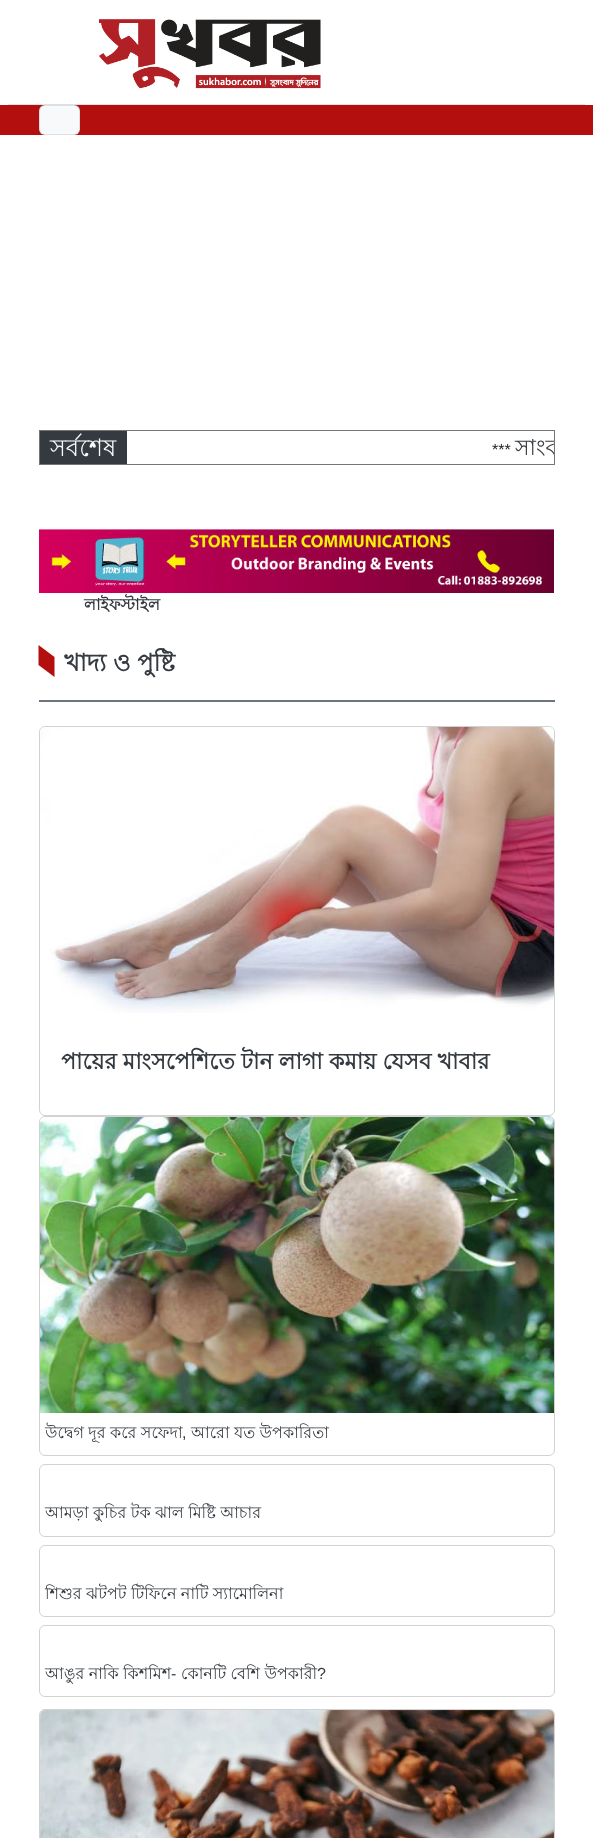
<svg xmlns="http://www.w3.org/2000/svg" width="593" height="1838">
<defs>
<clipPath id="clip1"><rect x="127" y="431" width="427" height="33"/></clipPath>
</defs>
<rect width="100%" height="100%" fill="#fff"/>
<rect x="8" y="104" width="577" height="1" fill="#dee2e6"/>
<image x="99" y="19" width="222" height="70" href="media/1.png"/>
<rect y="105" width="593" height="30" fill="#b30f0f"/>
<rect x="39" y="105" width="41" height="30" rx="6" fill="#f8f9fa"/>
<rect x="39.5" y="105.5" width="40" height="29" rx="5.5" fill="none" stroke="#0000001a"/>
<rect x="39.5" y="430.5" width="515" height="34" fill="none" stroke="#787474"/>
<rect x="40" y="431" width="87" height="33" fill="#343a40"/>
<text x="50" y="456" style="font-family:Lohit Bengali;font-size:24px;fill:#f8f9fa">সর্বশেষ</text>
<text x="492" y="455" style="font-family:Liberation Sans;font-size:16px;fill:#212529">***</text>
<g clip-path="url(#clip1)">
<text x="515" y="455" style="font-family:Lohit Bengali;font-size:22px;fill:#343a40">সাংব</text>
</g>
<image x="39" y="529" width="515" height="64" href="media/2.png"/>
<text x="84" y="610" style="font-family:Lohit Bengali;font-size:16px;font-weight:bold;fill:#343a40">লাইফস্টাইল</text>
<path d="M38.5 645l16 12v20l-16-12z" fill="#b30f0f"/>
<text x="64" y="671" style="font-family:Lohit Bengali;font-size:24px;font-weight:bold;fill:#343a40">খাদ্য ও পুষ্টি</text>
<rect x="39" y="700" width="516" height="2" fill="#6c757d"/>
<rect x="39.5" y="726.5" width="515" height="389" rx="5.5" fill="none" stroke="#d2d2d2"/>
<image x="40" y="727" width="514" height="286" href="media/3.png"/>
<text x="61" y="1069" style="font-family:Lohit Bengali;font-size:22.2px;font-weight:bold;fill:#343a40">পায়ের মাংসপেশিতে টান লাগা কমায় যেসব খাবার</text>
<rect x="39.5" y="1116.5" width="515" height="339" rx="5.5" fill="none" stroke="#d2d2d2"/>
<image x="40" y="1117" width="514" height="296" href="media/4.png"/>
<text x="45" y="1438" style="font-family:Lohit Bengali;font-size:16px;fill:#343a40">উদ্বেগ দূর করে সফেদা</text>
<text x="182" y="1438" style="font-family:Liberation Sans;font-size:16px;fill:#343a40">,</text>
<text x="191" y="1438" style="font-family:Lohit Bengali;font-size:16px;fill:#343a40">আরো যত উপকারিতা</text>
<rect x="39.5" y="1464.5" width="515" height="72" rx="5.5" fill="none" stroke="#d2d2d2"/>
<text x="45" y="1518" style="font-family:Lohit Bengali;font-size:16px;fill:#343a40">আমড়া কুচির টক ঝাল মিষ্টি আচার</text>
<rect x="39.5" y="1545.5" width="515" height="71" rx="5.5" fill="none" stroke="#d2d2d2"/>
<text x="45" y="1599" style="font-family:Lohit Bengali;font-size:16px;fill:#343a40">শিশুর ঝটপট টিফিনে নাটি স্যামোলিনা</text>
<rect x="39.5" y="1625.5" width="515" height="71" rx="5.5" fill="none" stroke="#d2d2d2"/>
<text x="45" y="1679" style="font-family:Lohit Bengali;font-size:16px;fill:#343a40">আঙুর নাকি কিশমিশ</text>
<text x="171" y="1679" style="font-family:Liberation Sans;font-size:16px;fill:#343a40">-</text>
<text x="181" y="1679" style="font-family:Lohit Bengali;font-size:16px;fill:#343a40">কোনটি বেশি উপকারী</text>
<text x="317" y="1679" style="font-family:Liberation Sans;font-size:16px;fill:#343a40">?</text>
<rect x="39.5" y="1709.5" width="515" height="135" rx="5.5" fill="none" stroke="#d2d2d2"/>
<image x="40" y="1710" width="514" height="128" href="media/5.png"/>
</svg>
